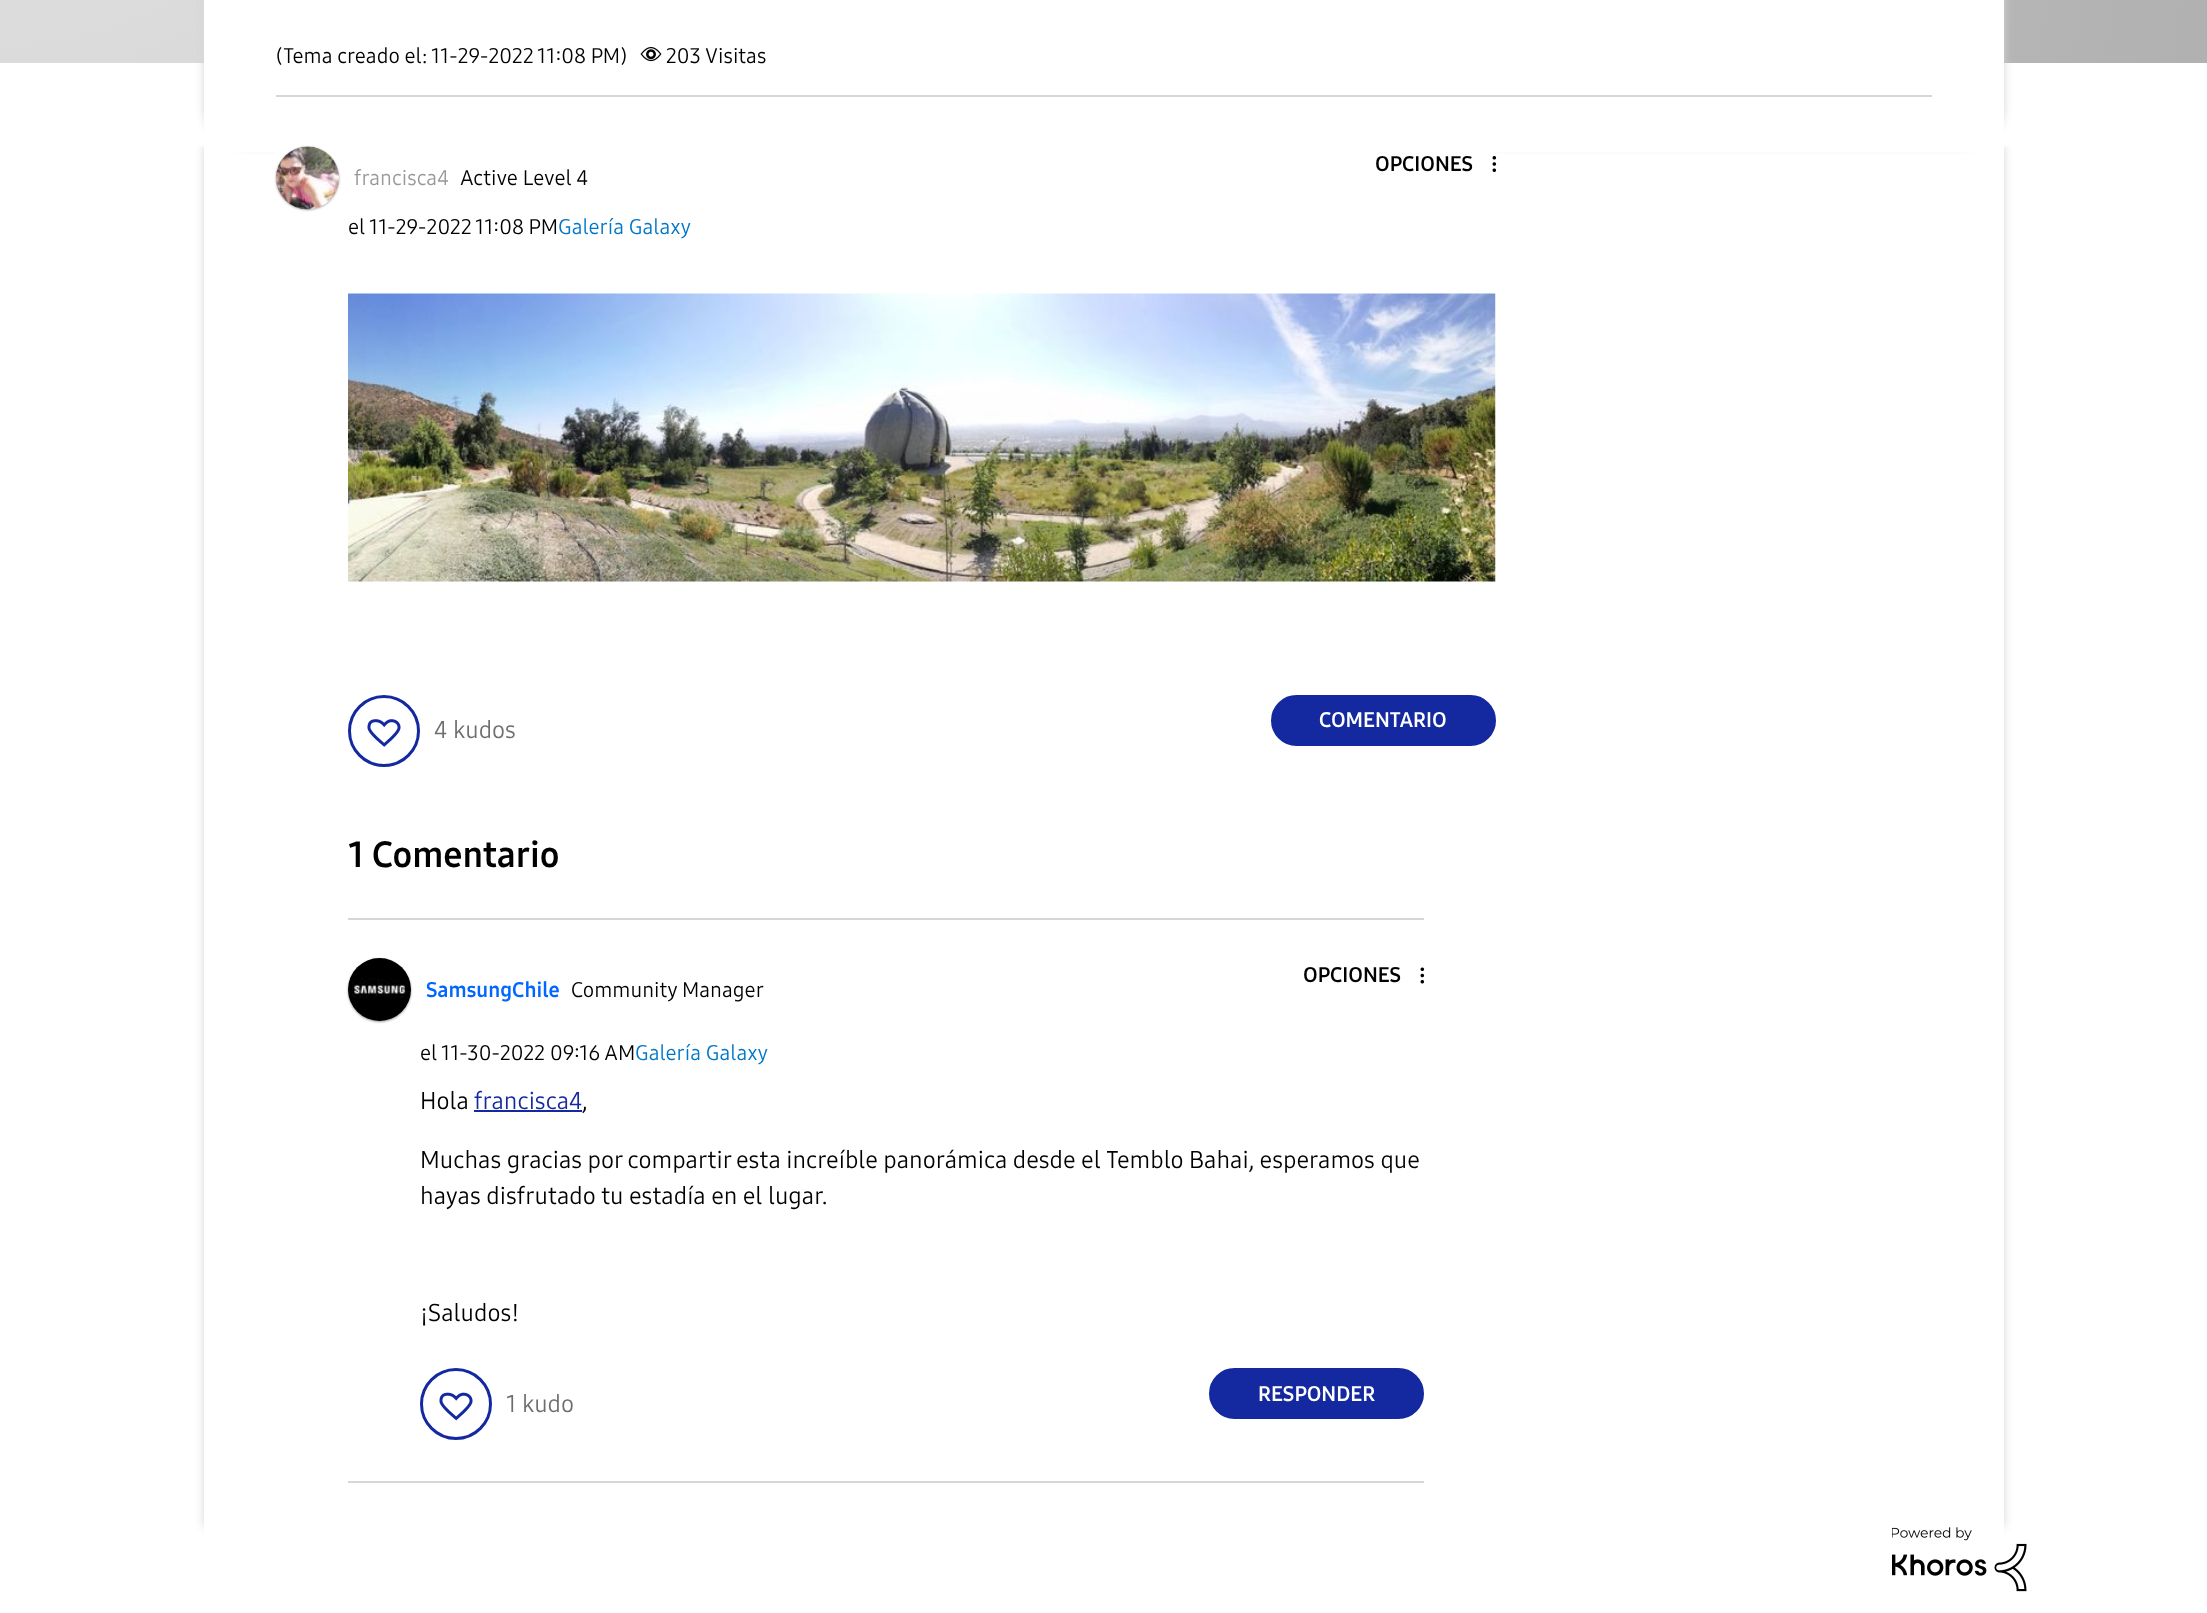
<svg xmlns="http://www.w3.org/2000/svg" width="2207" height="1613">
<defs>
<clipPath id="clip1"><path d="M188 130h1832v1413h-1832zm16 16h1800v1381h-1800z" clip-rule="evenodd"/></clipPath>
<radialGradient id="g1" gradientUnits="userSpaceOnUse" cx="0" cy="0" r="1" gradientTransform="matrix(2208 0 0 2160 0 -297)"><stop offset="0" stop-color="#e3e3e3"/><stop offset="1" stop-color="#b1b1b1"/></radialGradient>
</defs>
<rect width="100%" height="100%" fill="#fff"/>
<g clip-path="url(#clip1)">
<rect x="204" y="146" width="1800" height="1381" fill="#d6d6d6" filter="blur(5px)"/>
</g>
<rect x="199" y="138" width="1810" height="8" fill="#fff"/>
<rect width="2207" height="63" fill="url(#g1)"/>
<rect x="204" y="-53" width="1800" height="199" rx="38" fill="#d6d6d6" filter="blur(5px)"/>
<rect x="204" width="1800" height="146" fill="#fff"/>
<rect x="276" y="95" width="1656" height="2" fill="#d6d6d6"/>
<text x="276" y="63" style="font-family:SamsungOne;font-size:21px;fill:#000">(Tema creado el: 11-29-2022 11:08 PM)</text>
<image x="640" y="47" width="22" height="15" href="media/1.png"/>
<text x="666" y="63" style="font-family:SamsungOne;font-size:21px;fill:#000">203 Visitas</text>
<rect x="218" y="146" width="1772" height="6" fill="#fff"/>
<rect x="276" y="152" width="1220" height="2" fill="#fff"/>
<text x="1375" y="171" style="font-family:SamsungOne;font-size:21px;font-weight:bold;fill:#000">OPCIONES</text>
<image x="1492" y="156" width="5" height="16" href="media/2.png"/>
<rect x="276" y="147" width="63" height="63" rx="31.5" fill="#999" filter="blur(1px)"/>
<image x="276" y="146" width="63" height="64" href="media/3.png"/>
<text x="354" y="185" style="font-family:SamsungOne;font-size:21px;fill:#999">francisca4</text>
<text x="460" y="185" style="font-family:SamsungOne;font-size:21px;fill:#000">Active Level 4</text>
<text x="348" y="234" style="font-family:SamsungOne;font-size:21px;fill:#000">el</text>
<text x="369" y="234" style="font-family:SamsungOne;font-size:21px;fill:#000">11-29-2022</text>
<text x="475" y="234" style="font-family:SamsungOne;font-size:21px;fill:#000">11:08 PM</text>
<text x="558" y="234" style="font-family:SamsungOne;font-size:21px;fill:#0077c8">Galería Galaxy</text>
<image x="348" y="293" width="1148" height="289" href="media/4.png"/>
<circle cx="384" cy="731" r="34.5" fill="none" stroke="#1428a0" stroke-width="3"/>
<image x="367" y="719" width="34" height="28" href="media/5.png"/>
<text x="434" y="738" style="font-family:SamsungOne;font-size:24px;fill:#6e6e6e">4 kudos</text>
<rect x="1272" y="696" width="223" height="49" rx="24.5" fill="#1428a0" stroke="#1428a0" stroke-width="2"/>
<text x="1319" y="727" style="font-family:SamsungOne;font-size:21px;font-weight:bold;fill:#fff">COMENTARIO</text>
<text x="348" y="867" style="font-family:SamsungOne;font-size:36px;font-weight:bold;fill:#000">1 Comentario</text>
<rect x="348" y="918" width="1076" height="2" fill="#d6d6d6"/>
<rect x="348" y="1481" width="1076" height="2" fill="#d6d6d6"/>
<text x="1303" y="982" style="font-family:SamsungOne;font-size:21px;font-weight:bold;fill:#000">OPCIONES</text>
<image x="1420" y="967" width="5" height="17" href="media/6.png"/>
<rect x="348" y="959" width="63" height="63" rx="31.5" fill="#999" filter="blur(1px)"/>
<image x="348" y="958" width="63" height="63" href="media/7.png"/>
<text x="426" y="997" style="font-family:SamsungOne;font-size:21px;font-weight:bold;fill:#06f">SamsungChile</text>
<text x="571" y="997" style="font-family:SamsungOne;font-size:21px;fill:#000">Community Manager</text>
<text x="420" y="1060" style="font-family:SamsungOne;font-size:21px;fill:#000">el</text>
<text x="441" y="1060" style="font-family:SamsungOne;font-size:21px;fill:#000">11-30-2022 09:16 AM</text>
<text x="635" y="1060" style="font-family:SamsungOne;font-size:21px;fill:#0077c8">Galería Galaxy</text>
<text x="420" y="1109" style="font-family:SamsungOne;font-size:24px;fill:#000">Hola</text>
<text x="474" y="1109" style="font-family:SamsungOne;font-size:24px;fill:#1428a0">francisca4</text>
<text x="582" y="1109" style="font-family:SamsungOne;font-size:24px;fill:#000">,</text>
<rect x="474" y="1110" width="108" height="2" fill="#1428a0"/>
<text x="420" y="1168" style="font-family:SamsungOne;font-size:24px;fill:#000">Muchas gracias por compartir esta increíble panorámica desde el Temblo Bahai, esperamos que</text>
<text x="420" y="1204" style="font-family:SamsungOne;font-size:24px;fill:#000">hayas disfrutado tu estadía en el lugar.</text>
<text x="420" y="1321" style="font-family:SamsungOne;font-size:24px;fill:#000">¡Saludos!</text>
<circle cx="456" cy="1404" r="34.5" fill="none" stroke="#1428a0" stroke-width="3"/>
<image x="439" y="1392" width="34" height="29" href="media/8.png"/>
<text x="506" y="1412" style="font-family:SamsungOne;font-size:24px;fill:#6e6e6e">1 kudo</text>
<rect x="1210" y="1369" width="213" height="49" rx="24.5" fill="#1428a0" stroke="#1428a0" stroke-width="2"/>
<text x="1258" y="1401" style="font-family:SamsungOne;font-size:21px;font-weight:bold;fill:#fff">RESPONDER</text>
<rect x="204" y="1527" width="1800" height="8" fill="#fff"/>
<image x="1892" y="1527" width="135" height="65" href="media/9.png"/>
</svg>
